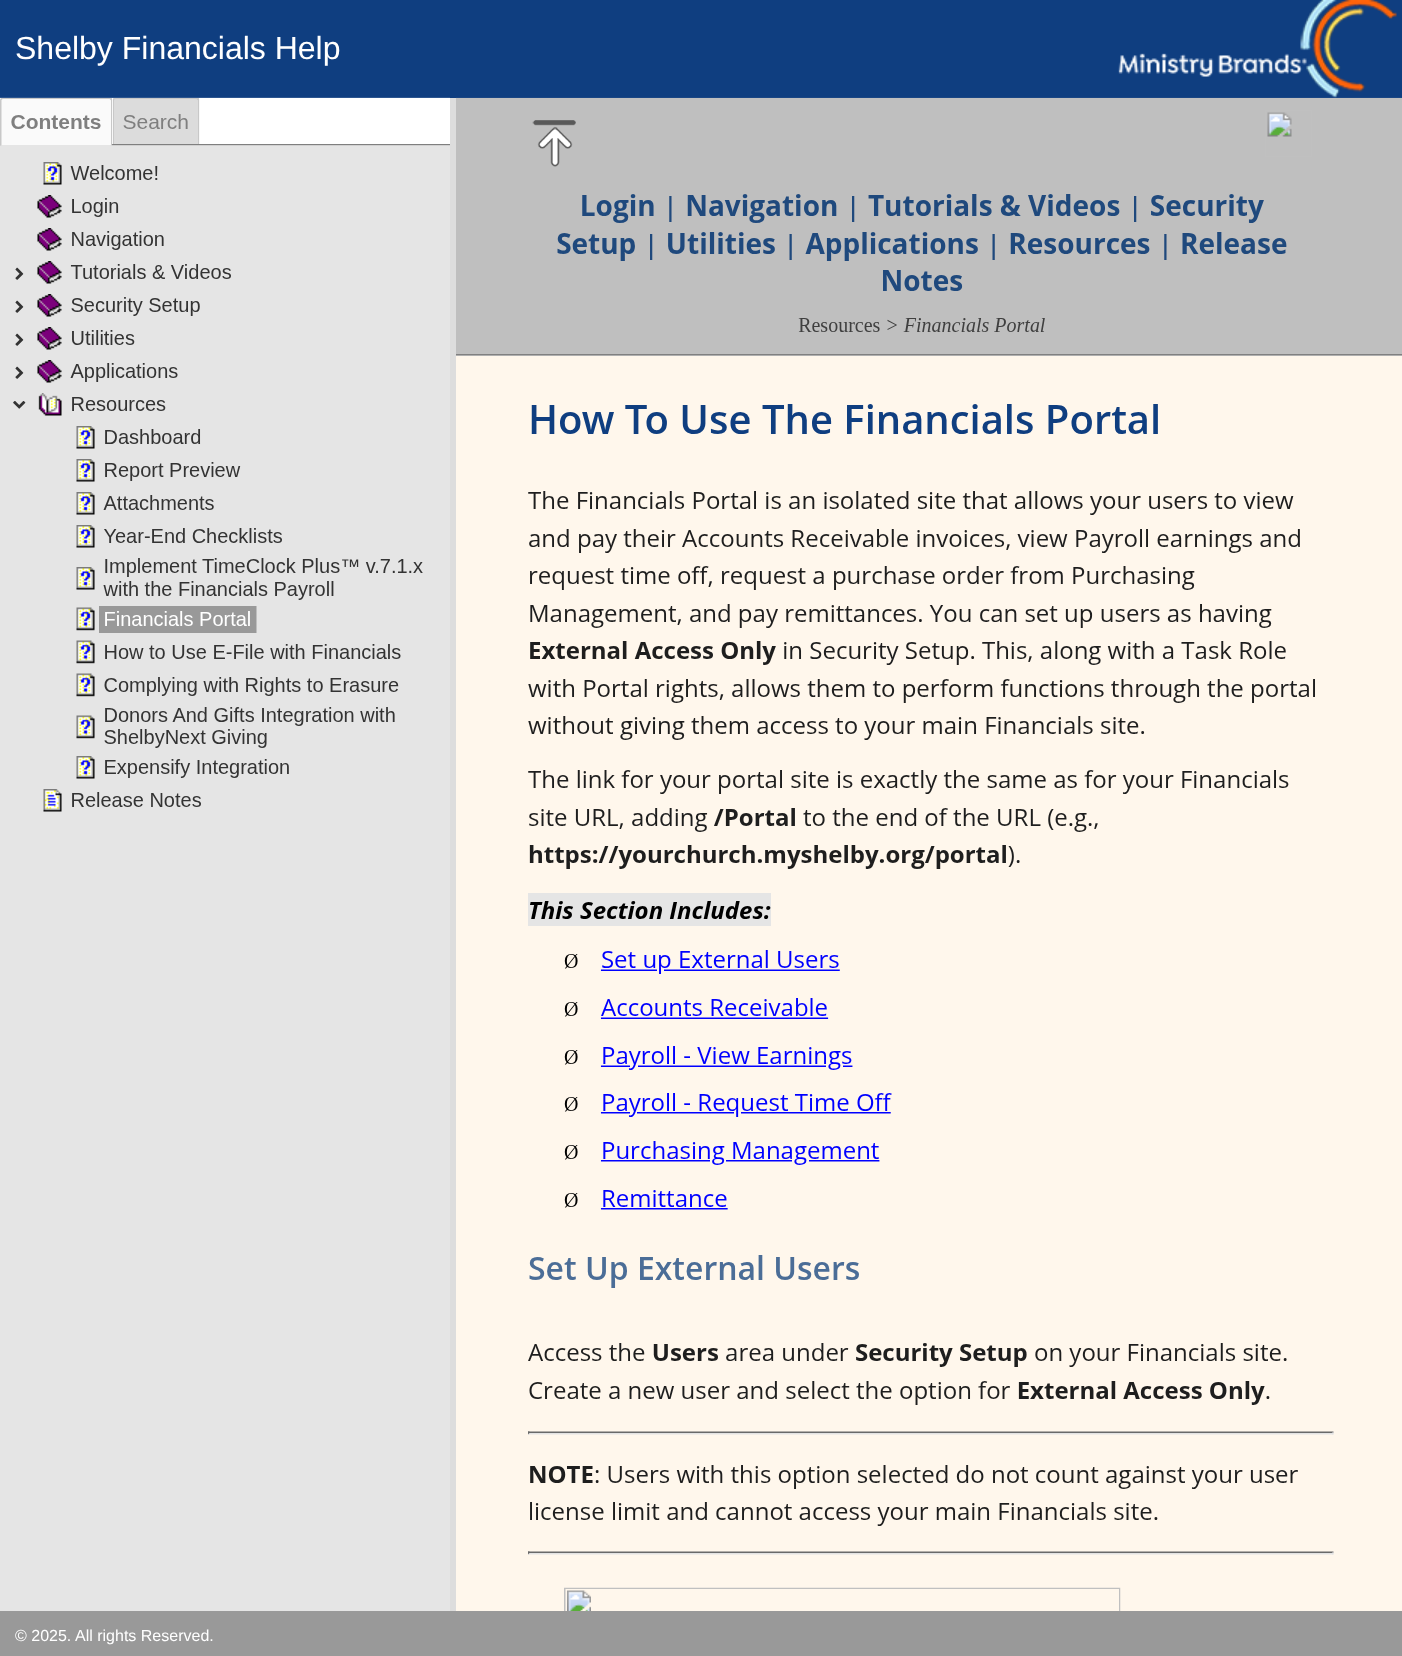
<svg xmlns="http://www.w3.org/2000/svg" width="1402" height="1656">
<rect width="100%" height="100%" fill="#fff"/>
<rect width="1402" height="98" fill="#0f3e80"/>
<image x="1118" y="0" width="279" height="98" href="media/1.png"/>
<text x="15" y="59" style="font-family:Liberation Sans;font-size:32px;fill:#fff">Shelby Financials Help</text>
<image x="0" y="97" width="450" height="1514" href="media/2.png"/>
<image x="456" y="97" width="946" height="1514" href="media/3.png"/>
<rect x="450" y="98" width="6" height="1513" fill="#ddd"/>
<rect y="1611" width="1402" height="45" fill="#999"/>
<text x="15" y="1641" style="font-family:Liberation Sans;font-size:16px;fill:#fff">© 2025.</text>
<text x="75" y="1641" style="font-family:Liberation Sans;font-size:16px;fill:#fff">All rights Reserved.</text>
</svg>
